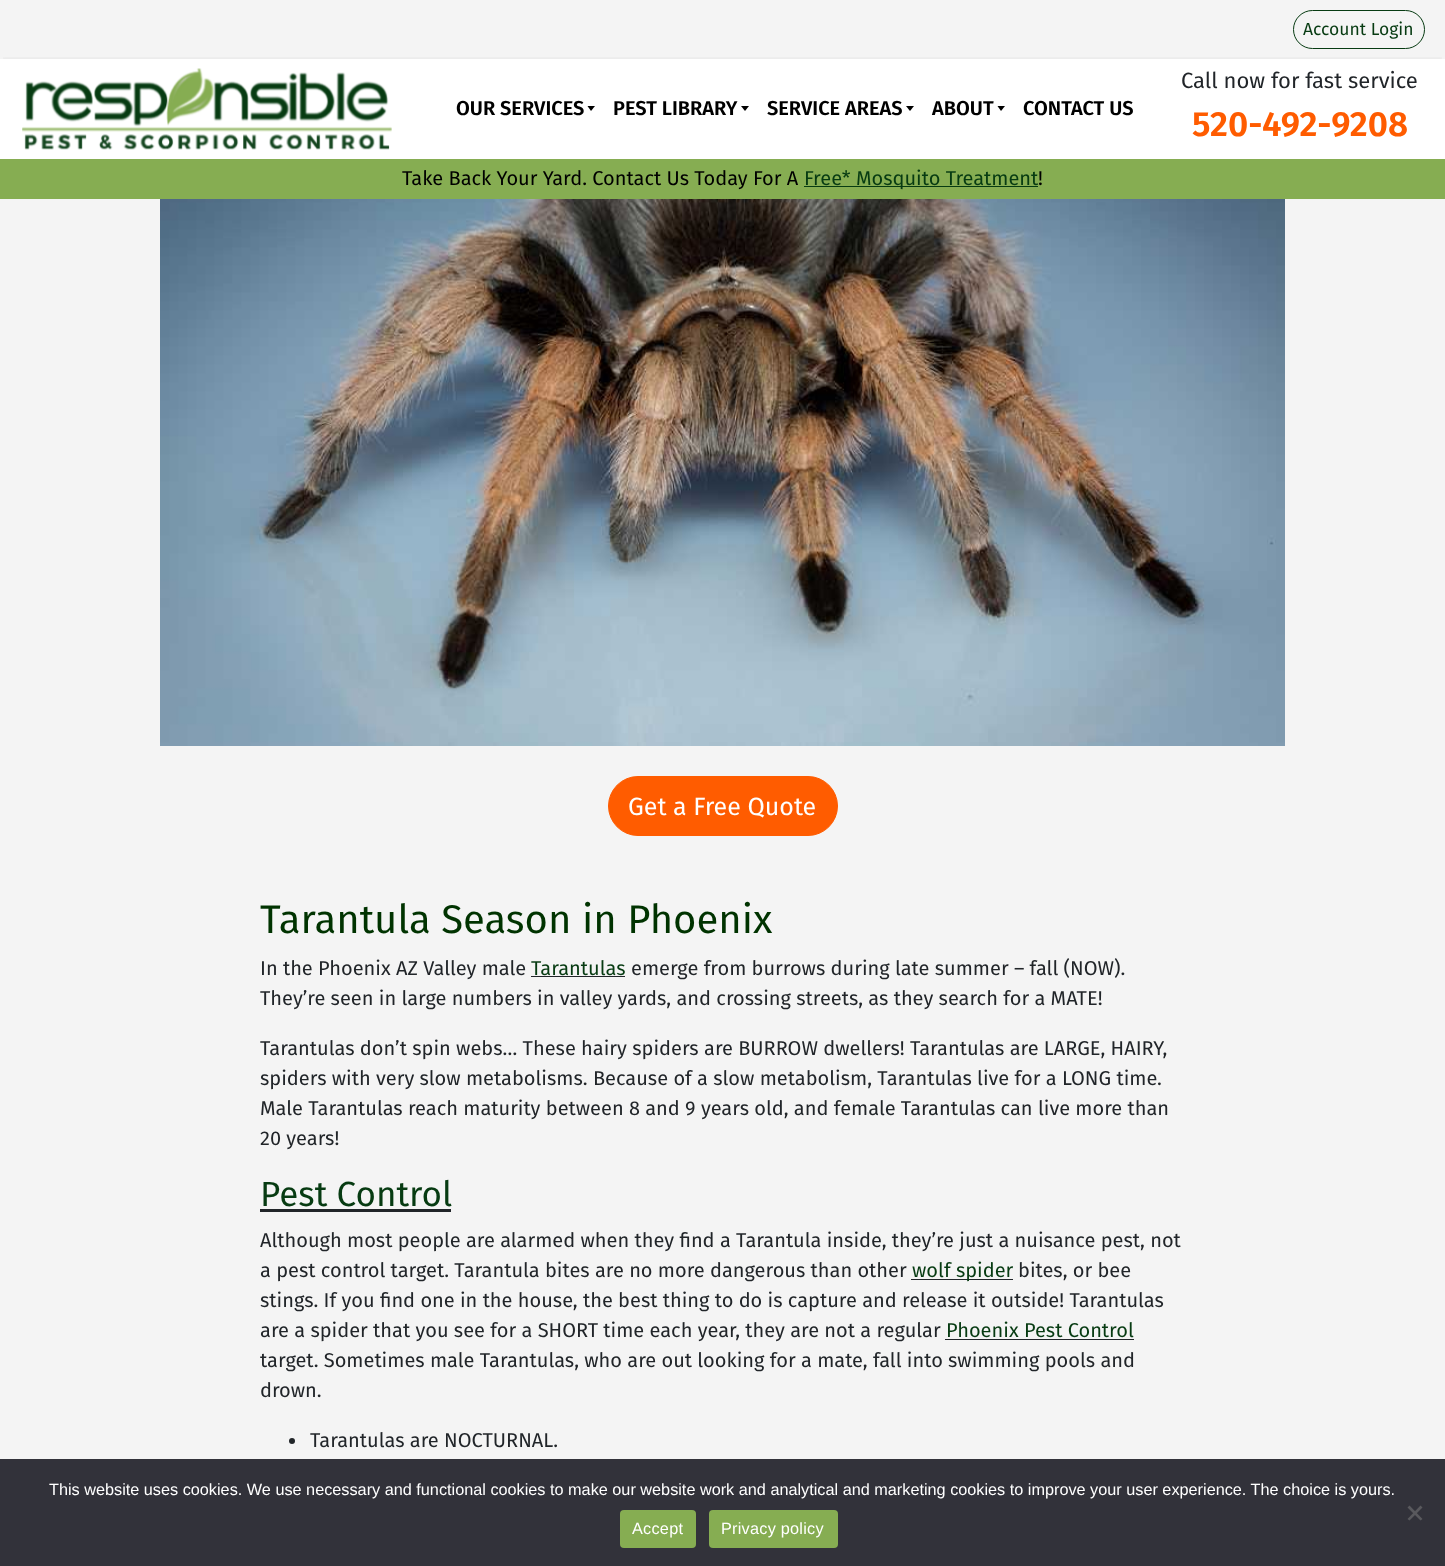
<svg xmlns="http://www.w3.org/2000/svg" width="1445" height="1566">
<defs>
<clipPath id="clip1"><rect x="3" y="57" width="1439" height="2"/></clipPath>
</defs>
<rect width="100%" height="100%" fill="#f4f4f4"/>
<rect y="59" width="1445" height="100" fill="#fff"/>
<rect x="1293.5" y="10.5" width="131" height="38" rx="19" fill="none" stroke="#073b12"/>
<text x="1303" y="35" style="font-family:Fira Sans;font-size:17.5px;fill:#073b12">Account Login</text>
<g clip-path="url(#clip1)">
<rect y="60" width="1445" height="100" fill="#0000001a" filter="blur(3px)"/>
</g>
<image x="22" y="68" width="370" height="82" href="media/1.png"/>
<text x="456" y="115" style="font-family:Fira Sans;font-size:20px;font-weight:600;fill:#000">OUR SERVICES</text>
<path d="M587.5 106h7.5l-4 5z" fill="#000"/>
<text x="613" y="115" style="font-family:Fira Sans;font-size:20px;font-weight:600;fill:#000">PEST LIBRARY</text>
<path d="M741 106h8l-4 5z" fill="#000"/>
<text x="767" y="115" style="font-family:Fira Sans;font-size:20px;font-weight:600;fill:#000">SERVICE AREAS</text>
<path d="M906 106h8l-4 5z" fill="#000"/>
<text x="932" y="115" style="font-family:Fira Sans;font-size:20px;font-weight:600;fill:#000">ABOUT</text>
<path d="M997.5 106h7.5l-4 5z" fill="#000"/>
<text x="1023" y="115" style="font-family:Fira Sans;font-size:20px;font-weight:600;fill:#000">CONTACT US</text>
<text x="1181" y="88" style="font-family:Fira Sans;font-size:22px;fill:#212529">Call now for fast service</text>
<text x="1192" y="136" style="font-family:Fira Sans;font-size:35px;font-weight:600;fill:#ff5c00">520-492-9208</text>
<rect y="159" width="1445" height="40" fill="#86ad52"/>
<text x="402" y="185" style="font-family:Fira Sans;font-size:20px;fill:#000">Take Back Your Yard. Contact Us Today For A</text>
<rect x="804" y="186" width="234" height="1" fill="#073b12"/>
<text x="804" y="185" style="font-family:Fira Sans;font-size:20px;fill:#073b12">Free* Mosquito Treatment</text>
<text x="1038" y="185" style="font-family:Fira Sans;font-size:20px;fill:#000">!</text>
<image x="160" y="199" width="1125" height="547" href="media/2.png"/>
<rect x="608.5" y="776.5" width="229" height="59" rx="29.5" fill="#ff5c00" stroke="#ff5c00"/>
<text x="628" y="815" style="font-family:Fira Sans;font-size:25px;fill:#fff">Get a Free Quote</text>
<text x="260" y="933" style="font-family:Fira Sans;font-size:40px;fill:#030">Tarantula Season in Phoenix</text>
<text x="260" y="975" style="font-family:Fira Sans;font-size:20px;fill:#212529">In the Phoenix AZ Valley male</text>
<text x="531" y="975" style="font-family:Fira Sans;font-size:20px;fill:#073b12">Tarantulas</text>
<rect x="531" y="976" width="94" height="1" fill="#212529"/>
<text x="631" y="975" style="font-family:Fira Sans;font-size:20px;fill:#212529">emerge from burrows during late summer – fall (NOW).</text>
<text x="260" y="1005" style="font-family:Fira Sans;font-size:20px;fill:#212529">They’re seen in large numbers in valley yards, and crossing streets, as they search for a MATE!</text>
<text x="260" y="1055" style="font-family:Fira Sans;font-size:20px;fill:#212529">Tarantulas don’t spin webs… These hairy spiders are BURROW dwellers! Tarantulas are LARGE, HAIRY,</text>
<text x="260" y="1085" style="font-family:Fira Sans;font-size:20px;fill:#212529">spiders with very slow metabolisms. Because of a slow metabolism, Tarantulas live for a LONG time.</text>
<text x="260" y="1115" style="font-family:Fira Sans;font-size:20px;fill:#212529">Male Tarantulas reach maturity between 8 and 9 years old, and female Tarantulas can live more than</text>
<text x="260" y="1145" style="font-family:Fira Sans;font-size:20px;fill:#212529">20 years!</text>
<text x="260" y="1206" style="font-family:Fira Sans;font-size:35px;fill:#073b12">Pest Control</text>
<rect x="260" y="1209" width="191" height="3" fill="#212529"/>
<text x="260" y="1247" style="font-family:Fira Sans;font-size:20px;fill:#212529">Although most people are alarmed when they find a Tarantula inside, they’re just a nuisance pest, not</text>
<text x="260" y="1277" style="font-family:Fira Sans;font-size:20px;fill:#212529">a pest control target. Tarantula bites are no more dangerous than other</text>
<rect x="911" y="1279" width="102" height="1" fill="#212529"/>
<text x="912" y="1277" style="font-family:Fira Sans;font-size:20px;fill:#073b12">wolf spider</text>
<text x="1018" y="1277" style="font-family:Fira Sans;font-size:20px;fill:#212529">bites, or bee</text>
<text x="260" y="1307" style="font-family:Fira Sans;font-size:20px;fill:#212529">stings. If you find one in the house, the best thing to do is capture and release it outside! Tarantulas</text>
<text x="260" y="1337" style="font-family:Fira Sans;font-size:20px;fill:#212529">are a spider that you see for a SHORT time each year, they are not a regular</text>
<text x="946" y="1337" style="font-family:Fira Sans;font-size:20px;fill:#073b12">Phoenix Pest Control</text>
<rect x="945" y="1339" width="189" height="1" fill="#212529"/>
<text x="260" y="1367" style="font-family:Fira Sans;font-size:20px;fill:#212529">target. Sometimes male Tarantulas, who are out looking for a mate, fall into swimming pools and</text>
<text x="260" y="1397" style="font-family:Fira Sans;font-size:20px;fill:#212529">drown.</text>
<circle cx="292" cy="1441" r="3" fill="#212529"/>
<text x="310" y="1447" style="font-family:Fira Sans;font-size:20px;fill:#212529">Tarantulas are NOCTURNAL.</text>
<rect y="1459" width="1445" height="107" fill="#32323a"/>
<text x="49" y="1495" style="font-family:Liberation Sans;font-size:16.25px;fill:#fff">This website uses cookies. We use necessary and functional cookies to make our website work and analytical and marketing cookies to improve your user experience. The choice is yours.</text>
<path d="M1420.5 1505.5l2 2l-13 13l-2-1.5z" fill="#59595d"/>
<path d="M1407.5 1507.5l2-2l13 13.5l-2 1.5z" fill="#59595d"/>
<rect x="620" y="1510" width="76" height="38" rx="4" fill="#86ad52"/>
<text x="632" y="1534" style="font-family:Liberation Sans;font-size:16.25px;letter-spacing:0.25px;fill:#fff">Accept</text>
<rect x="709" y="1510" width="129" height="38" rx="4" fill="#86ad52"/>
<text x="721" y="1534" style="font-family:Liberation Sans;font-size:16.25px;letter-spacing:0.25px;fill:#fff">Privacy policy</text>
</svg>
